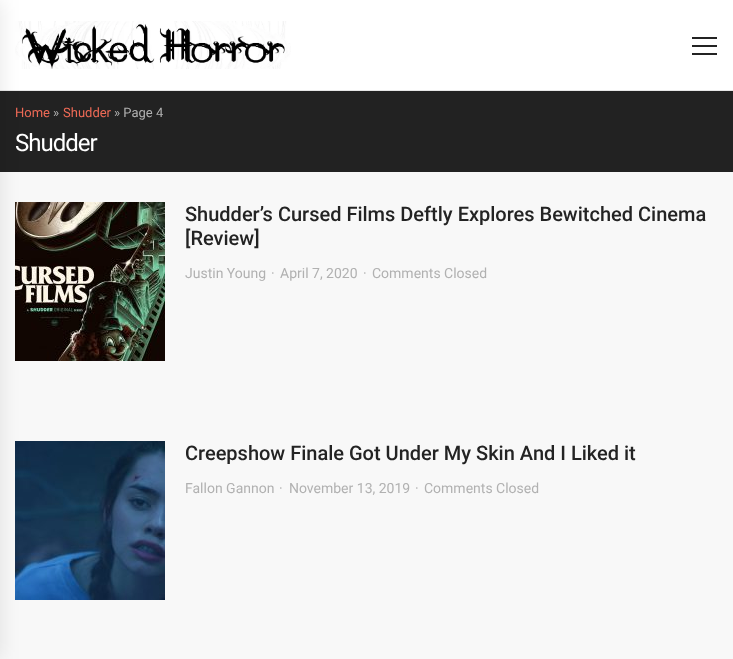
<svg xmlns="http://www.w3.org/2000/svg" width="733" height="659">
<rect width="100%" height="100%" fill="#f8f8f8"/>
<rect width="733" height="90" fill="#fff"/>
<rect y="90" width="733" height="1" fill="#e6e6e6"/>
<image x="15" y="21" width="276" height="48" href="media/1.png"/>
<rect y="91" width="733" height="81" fill="#222"/>
<image x="15" y="202" width="150" height="159" href="media/2.png"/>
<image x="15" y="441" width="150" height="159" href="media/3.png"/>
<rect x="-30" width="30" height="659" fill="#0000001a" filter="blur(10px)"/>
<rect x="692" y="45" width="25" height="2" fill="#232323"/>
<rect x="692" y="37" width="25" height="2" fill="#232323"/>
<rect x="692" y="53" width="25" height="2" fill="#232323"/>
<text x="15" y="117" style="font-family:Roboto;font-size:13px;fill:#ee6a56">Home</text>
<text x="53" y="117" style="font-family:Roboto;font-size:13px;fill:#b1b1b1">»</text>
<text x="63" y="117" style="font-family:Roboto;font-size:13px;fill:#ee6a56">Shudder</text>
<text x="114" y="117" style="font-family:Roboto;font-size:13px;fill:#b1b1b1">» Page 4</text>
<text x="15" y="151" style="font-family:Roboto;font-size:24px;letter-spacing:-1px;fill:#fff">Shudder</text>
<text x="185" y="221" style="font-family:Roboto;font-size:20px;font-weight:500;fill:#232323">Shudder’s Cursed Films Deftly Explores Bewitched Cinema</text>
<text x="185" y="245" style="font-family:Roboto;font-size:20px;font-weight:500;fill:#232323">[Review]</text>
<text x="185" y="278" style="font-family:Roboto;font-size:14px;fill:#b1b1b1">Justin Young</text>
<text x="271" y="278" style="font-family:Roboto;font-size:14px;fill:#b1b1b1">·</text>
<text x="280" y="278" style="font-family:Roboto;font-size:14px;fill:#b1b1b1">April 7, 2020</text>
<text x="363" y="278" style="font-family:Roboto;font-size:14px;fill:#b1b1b1">·</text>
<text x="372" y="278" style="font-family:Roboto;font-size:14px;fill:#b1b1b1">Comments Closed</text>
<text x="185" y="460" style="font-family:Roboto;font-size:20px;font-weight:500;fill:#232323">Creepshow Finale Got Under My Skin And I Liked it</text>
<text x="185" y="493" style="font-family:Roboto;font-size:14px;fill:#b1b1b1">Fallon Gannon</text>
<text x="279" y="493" style="font-family:Roboto;font-size:14px;fill:#b1b1b1">·</text>
<text x="289" y="493" style="font-family:Roboto;font-size:14px;fill:#b1b1b1">November 13, 2019</text>
<text x="415" y="493" style="font-family:Roboto;font-size:14px;fill:#b1b1b1">·</text>
<text x="424" y="493" style="font-family:Roboto;font-size:14px;fill:#b1b1b1">Comments Closed</text>
</svg>
